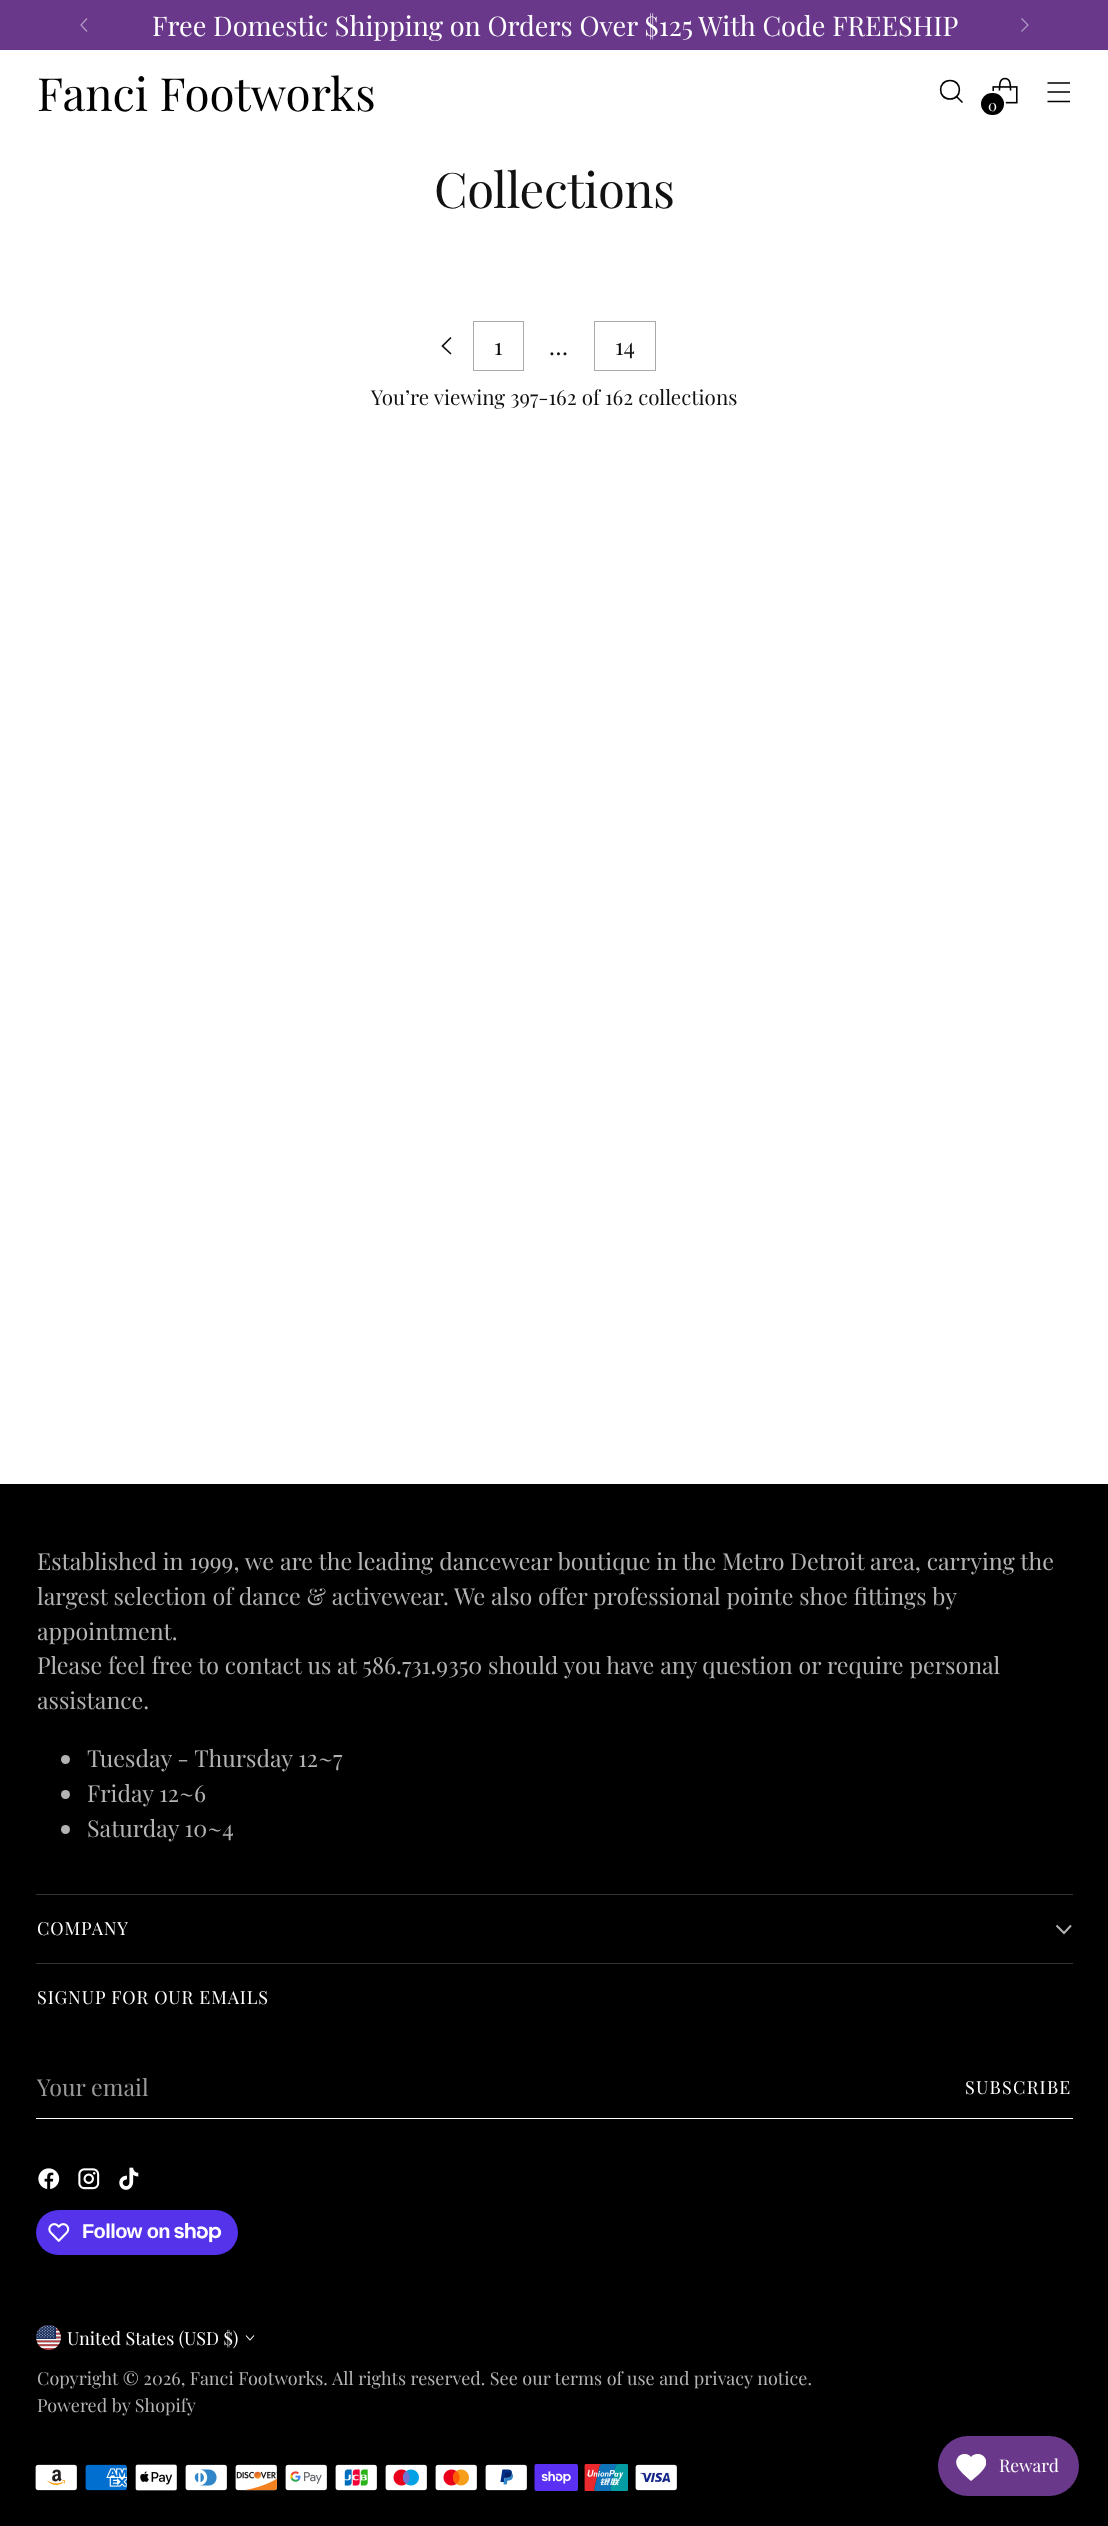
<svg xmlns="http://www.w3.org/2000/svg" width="1108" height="2526">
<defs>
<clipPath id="clip1"><rect x="956" y="2454" width="30" height="27"/></clipPath>
</defs>
<rect width="100%" height="100%" fill="#fff"/>
<rect width="1108" height="50" fill="#69388a"/>
<text x="152" y="36" style="font-family:Playfair Display;font-size:27.1px;fill:#fff">Free Domestic Shipping on Orders Over $125 With Code FREESHIP</text>
<path d="M87 18.5l-6 6.5l6 6.5" fill="none" stroke="#b49cc5" stroke-width="1.2"/>
<path d="M1021.5 31.5l6.5-6.5l-6.5-6.5" fill="none" stroke="#b49cc5" stroke-width="1.2"/>
<text x="37" y="111" style="font-family:Playfair Display;font-size:45.75px;fill:#000">Fanci Footworks</text>
<path d="M950 99c12.5 0 12.5-18.5 0-18.5c-12.5 0-12.5 18.5 0 18.5z" fill="none" stroke="#000" stroke-width="1.6" stroke-linecap="round"/>
<path d="M956.5 96.5l6 6" fill="none" stroke="#000" stroke-width="1.6"/>
<path d="M1047.5 92h22.5m-22.5-9h22.5m-22.5 18.5h22.5" fill="none" stroke="#000" stroke-width="1.6"/>
<image x="992" y="77" width="26" height="27" href="media/1.png"/>
<rect x="981" y="92" width="24" height="25" rx="12" fill="none" stroke="#fff" stroke-width="2"/>
<rect x="981" y="93" width="23" height="22" rx="11" fill="#000"/>
<text x="988" y="111" style="font-family:Playfair Display;font-size:15px;fill:#fff">0</text>
<text x="434" y="208" style="font-family:Playfair Display;font-size:49px;letter-spacing:-0.5px;fill:#111">Collections</text>
<path d="M451 337.5l-8.5 8.5l8.5 8" fill="none" stroke="#111" stroke-width="1.7"/>
<rect x="473.5" y="321.5" width="50" height="49" fill="none" stroke="#aaa"/>
<text x="494" y="355" style="font-family:Playfair Display;font-size:23.25px;fill:#111">1</text>
<text x="549" y="355" style="font-family:Playfair Display;font-size:23.25px;fill:#111">…</text>
<rect x="594.5" y="321.5" width="61" height="49" fill="none" stroke="#aaa"/>
<text x="615" y="355" style="font-family:Playfair Display;font-size:23.25px;fill:#111">14</text>
<text x="371" y="405" style="font-family:Playfair Display;font-size:20.6px;fill:#111">You’re viewing 397-162 of 162 collections</text>
<rect y="1484" width="1108" height="1042" fill="#000"/>
<rect x="36" y="1894" width="1037" height="1" fill="#333"/>
<text x="37" y="1570" style="font-family:Playfair Display;font-size:23.25px;fill:#b3b3b3">Established in 1999, we are the leading dancewear boutique in the Metro Detroit area, carrying the</text>
<text x="37" y="1605" style="font-family:Playfair Display;font-size:23.25px;fill:#b3b3b3">largest selection of dance &amp; activewear. We also offer professional pointe shoe fittings by</text>
<text x="37" y="1640" style="font-family:Playfair Display;font-size:23.25px;fill:#b3b3b3">appointment.</text>
<text x="37" y="1674" style="font-family:Playfair Display;font-size:23.25px;fill:#b3b3b3">Please feel free to contact us at 586.731.9350 should you have any question or require personal</text>
<text x="37" y="1709" style="font-family:Playfair Display;font-size:23.25px;fill:#b3b3b3">assistance.</text>
<circle cx="65.5" cy="1759.5" r="4.5" fill="#b3b3b3"/>
<text x="87" y="1767" style="font-family:Playfair Display;font-size:23.25px;fill:#b3b3b3">Tuesday - Thursday 12~7</text>
<circle cx="65.5" cy="1794.5" r="4.5" fill="#b3b3b3"/>
<text x="87" y="1802" style="font-family:Playfair Display;font-size:23.25px;fill:#b3b3b3">Friday 12~6</text>
<circle cx="65.5" cy="1829.5" r="4.5" fill="#b3b3b3"/>
<text x="87" y="1837" style="font-family:Playfair Display;font-size:23.25px;fill:#b3b3b3">Saturday 10~4</text>
<rect x="36" y="1963" width="1037" height="1" fill="#333"/>
<text x="37" y="1935" style="font-family:Playfair Display;font-size:18.05px;letter-spacing:0.9px;fill:#fff">COMPANY</text>
<path d="M1056.5 1925.5l7.5 7.5l7-7.5" fill="none" stroke="#b3b3b3" stroke-width="2"/>
<text x="37" y="2004" style="font-family:Playfair Display;font-size:18.05px;letter-spacing:0.9px;fill:#fff">SIGNUP FOR OUR EMAILS</text>
<rect x="36" y="2118" width="1037" height="1" fill="#fff"/>
<text x="37" y="2096" style="font-family:Playfair Display;font-size:23.25px;fill:#999">Your email</text>
<text x="965" y="2094" style="font-family:Playfair Display;font-size:18.05px;letter-spacing:1.25px;fill:#fff">SUBSCRIBE</text>
<image x="38" y="2168" width="22" height="21" href="media/2.png"/>
<image x="78" y="2168" width="22" height="22" href="media/3.png"/>
<image x="119" y="2167" width="20" height="23" href="media/4.png"/>
<rect x="36" y="2210" width="202" height="45" rx="22.5" fill="#5433eb"/>
<image x="48" y="2223" width="22" height="19" href="media/5.png"/>
<text x="82" y="2238" style="font-family:Liberation Sans;font-size:20px;font-weight:bold;letter-spacing:-0.6px;fill:#fff">Follow on</text>
<image x="174" y="2223" width="48" height="20" href="media/6.png"/>
<image x="36" y="2325" width="25" height="25" href="media/7.png"/>
<text x="67" y="2345" style="font-family:Playfair Display;font-size:18.05px;fill:#fff">United States (USD $)</text>
<path d="M246 2335.5l4 4.5l4-4.5" fill="none" stroke="#fff" stroke-width="1.1"/>
<text x="37" y="2385" style="font-family:Playfair Display;font-size:18.05px;fill:#b3b3b3">Copyright © 2026, Fanci Footworks.</text>
<text x="332" y="2385" style="font-family:Playfair Display;font-size:18.05px;fill:#b3b3b3">All rights reserved. See our terms of use and privacy notice.</text>
<text x="37" y="2412" style="font-family:Playfair Display;font-size:18.05px;fill:#b3b3b3">Powered by Shopify</text>
<image x="35" y="2464" width="42" height="27" href="media/8.png"/>
<image x="85" y="2464" width="42" height="27" href="media/9.png"/>
<image x="135" y="2464" width="42" height="27" href="media/10.png"/>
<image x="185" y="2464" width="42" height="27" href="media/11.png"/>
<image x="235" y="2464" width="42" height="27" href="media/12.png"/>
<image x="285" y="2464" width="42" height="27" href="media/13.png"/>
<image x="335" y="2464" width="42" height="27" href="media/14.png"/>
<image x="385" y="2464" width="42" height="27" href="media/15.png"/>
<image x="435" y="2464" width="42" height="27" href="media/16.png"/>
<image x="485" y="2464" width="42" height="27" href="media/17.png"/>
<image x="534" y="2464" width="44" height="27" href="media/18.png"/>
<image x="584" y="2464" width="44" height="27" href="media/19.png"/>
<image x="635" y="2464" width="42" height="27" href="media/20.png"/>
<rect x="938" y="2436" width="141" height="60" rx="30" fill="#69388a"/>
<g clip-path="url(#clip1)">
<path d="M971 2481c-4.5-4-11-9-14-15c-4-9.5 8-16.5 14-9c6.5-7.5 18.5-.5 14.5 9c-3 6-9.5 11-14.5 15z" fill="#fff"/>
</g>
<text x="999" y="2472" style="font-family:Playfair Display;font-size:17.5px;fill:#fff">Reward</text>
</svg>
